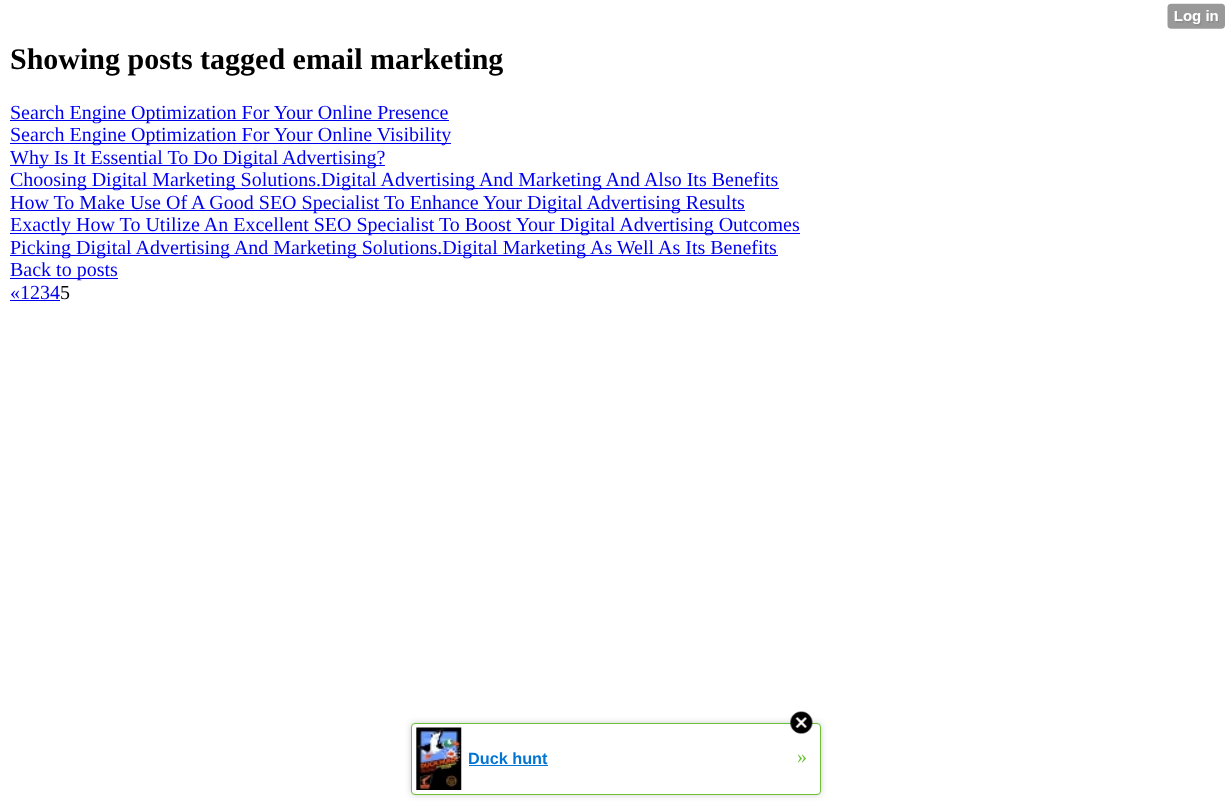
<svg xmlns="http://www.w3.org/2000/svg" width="1231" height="808">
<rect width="100%" height="100%" fill="#fff"/>
<image x="1167" y="3" width="58" height="26" href="media/1.png"/>
<text x="10" y="69" style="font-family:Liberation Serif;font-size:30px;font-weight:bold;fill:#000">Showing posts tagged email marketing</text>
<rect x="10" y="120" width="439" height="1" fill="#00e"/>
<text x="10" y="119" style="font-family:Liberation Serif;font-size:20px;fill:#00e">Search Engine Optimization For Your Online Presence</text>
<rect x="10" y="143" width="441" height="1" fill="#00e"/>
<text x="10" y="141" style="font-family:Liberation Serif;font-size:20px;fill:#00e">Search Engine Optimization For Your Online Visibility</text>
<rect x="10" y="165" width="375" height="1" fill="#00e"/>
<text x="10" y="164" style="font-family:Liberation Serif;font-size:20px;fill:#00e">Why Is It Essential To Do Digital Advertising?</text>
<rect x="10" y="188" width="769" height="1" fill="#00e"/>
<text x="10" y="186" style="font-family:Liberation Serif;font-size:20px;fill:#00e">Choosing Digital Marketing Solutions.Digital Advertising And Marketing And Also Its Benefits</text>
<rect x="10" y="210" width="735" height="1" fill="#00e"/>
<text x="10" y="209" style="font-family:Liberation Serif;font-size:20px;fill:#00e">How To Make Use Of A Good SEO Specialist To Enhance Your Digital Advertising Results</text>
<rect x="10" y="233" width="790" height="1" fill="#00e"/>
<text x="10" y="231" style="font-family:Liberation Serif;font-size:20px;fill:#00e">Exactly How To Utilize An Excellent SEO Specialist To Boost Your Digital Advertising Outcomes</text>
<rect x="10" y="255" width="768" height="1" fill="#00e"/>
<text x="10" y="254" style="font-family:Liberation Serif;font-size:20px;fill:#00e">Picking Digital Advertising And Marketing Solutions.Digital Marketing As Well As Its Benefits</text>
<rect x="10" y="278" width="108" height="1" fill="#00e"/>
<text x="10" y="276" style="font-family:Liberation Serif;font-size:20px;fill:#00e">Back to posts</text>
<text x="10" y="299" style="font-family:Liberation Serif;font-size:20px;fill:#00e">«1234</text>
<rect x="10" y="300" width="50" height="1" fill="#00e"/>
<text x="60" y="299" style="font-family:Liberation Serif;font-size:20px;fill:#000">5</text>
<rect x="411" y="723" width="410" height="72" rx="4" fill="#00000033" filter="blur(3px)"/>
<rect x="411.5" y="723.5" width="409" height="71" rx="3.5" fill="#fff" stroke="#6bc135"/>
<image x="790" y="711" width="23" height="23" href="media/2.png"/>
<image x="416" y="727" width="46" height="63" href="media/3.png"/>
<text x="468" y="764" style="font-family:Liberation Sans;font-size:16.25px;font-weight:bold;fill:#0274d4">Duck hunt</text>
<rect x="469" y="765" width="79" height="1" fill="#0274d4"/>
<text x="797" y="763" style="font-family:Liberation Serif;font-size:20px;fill:#6bc135">»</text>
</svg>
